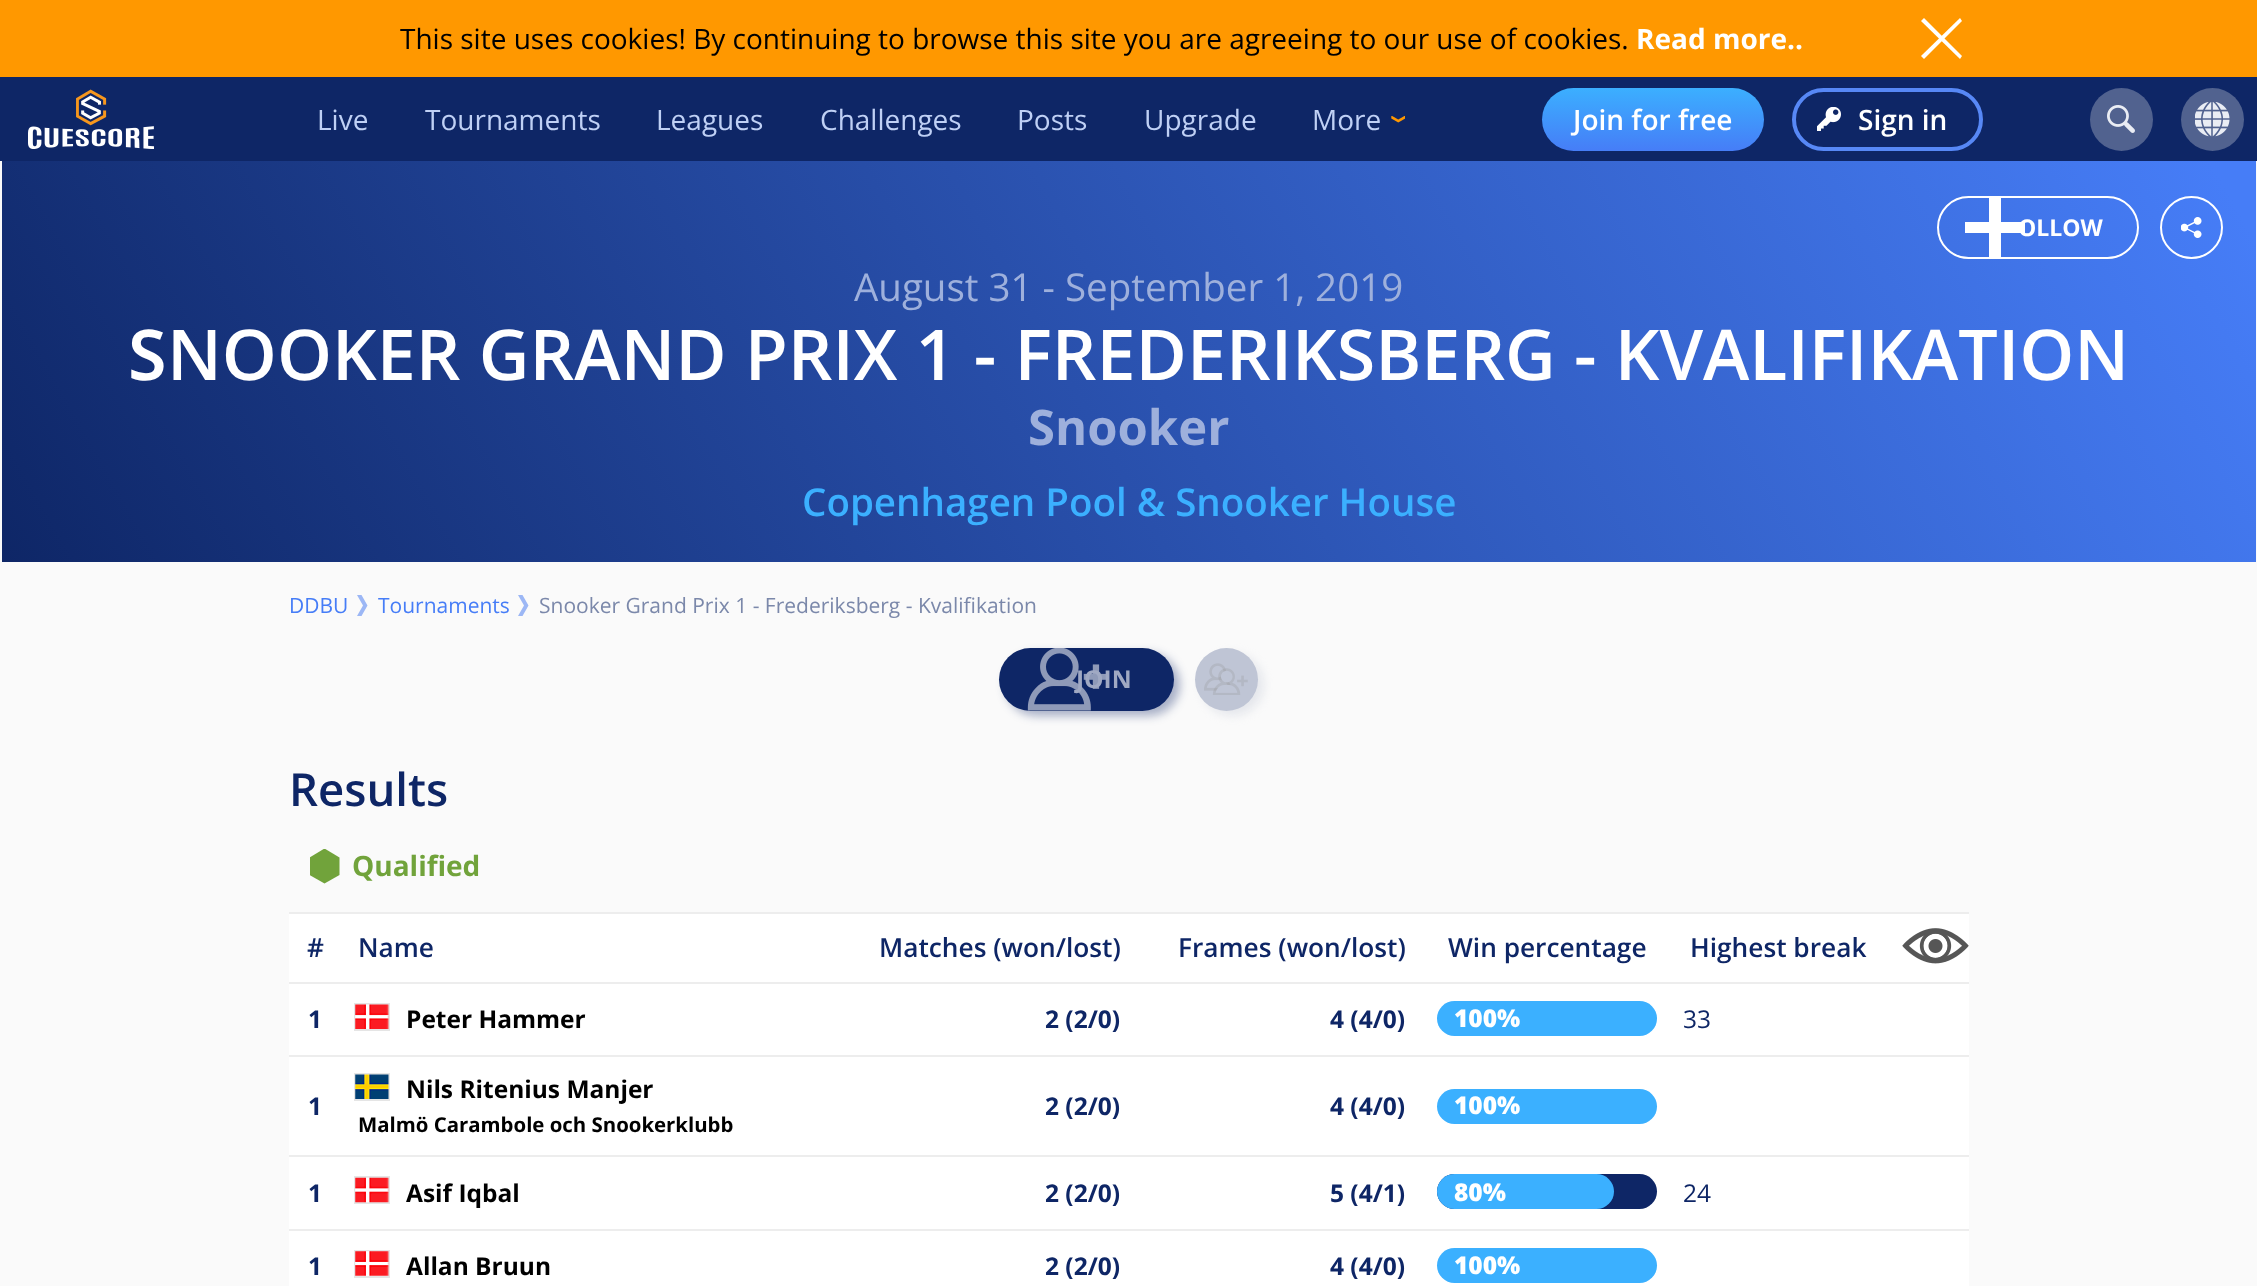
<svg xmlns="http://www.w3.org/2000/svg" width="2257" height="1286">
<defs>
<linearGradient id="g1" gradientUnits="userSpaceOnUse" x1="1653" y1="87" x2="1653" y2="151"><stop offset="0" stop-color="#3bb0ff"/><stop offset="1" stop-color="#467df7"/></linearGradient>
<linearGradient id="g2" gradientUnits="userSpaceOnUse" x1="182" y1="898" x2="2034" y2="-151"><stop offset="0" stop-color="#0e2666"/><stop offset="1" stop-color="#467df7"/></linearGradient>
<clipPath id="clip1"><rect x="310" y="849" width="30" height="35"/></clipPath>
</defs>
<rect width="100%" height="100%" fill="#fafafa"/>
<rect width="2257" height="77" fill="#ff9800"/>
<text x="400" y="49" style="font-family:Open Sans;font-size:28px;fill:#000">This site uses cookies! By continuing to browse this site you are agreeing to our use of cookies.</text>
<text x="1636" y="49" style="font-family:Open Sans;font-size:28px;font-weight:bold;fill:#fff">Read more..</text>
<path d="M1924 18l38 38l-2 3l-39-38z" fill="#fff"/>
<path d="M1921 56l39-38l2 3l-38 38z" fill="#fff"/>
<rect y="77" width="2257" height="84" fill="#0e2666"/>
<image x="28" y="89" width="126" height="60" href="media/1.png"/>
<text x="317" y="130" style="font-family:Open Sans;font-size:28px;fill:#bfd0f5">Live</text>
<text x="425" y="130" style="font-family:Open Sans;font-size:28px;fill:#bfd0f5">Tournaments</text>
<text x="656" y="130" style="font-family:Open Sans;font-size:28px;fill:#bfd0f5">Leagues</text>
<text x="820" y="130" style="font-family:Open Sans;font-size:28px;fill:#bfd0f5">Challenges</text>
<text x="1017" y="130" style="font-family:Open Sans;font-size:28px;fill:#bfd0f5">Posts</text>
<text x="1144" y="130" style="font-family:Open Sans;font-size:28px;fill:#bfd0f5">Upgrade</text>
<image x="1391" y="116" width="14" height="7" href="media/2.png"/>
<text x="1312" y="130" style="font-family:Open Sans;font-size:28px;fill:#bfd0f5">More</text>
<rect x="1542" y="88" width="222" height="63" rx="31.5" fill="url(#g1)"/>
<text x="1573" y="130" style="font-family:Open Sans;font-size:28px;font-weight:600;fill:#fff">Join for free</text>
<image x="1817" y="107" width="24" height="24" href="media/3.png"/>
<rect x="1794" y="90" width="187" height="59" rx="29.5" fill="none" stroke="#5788f6" stroke-width="4"/>
<text x="1858" y="130" style="font-family:Open Sans;font-size:28px;font-weight:600;fill:#fff">Sign in</text>
<circle cx="2121.5" cy="119.5" r="31.5" fill="#51628f"/>
<image x="2107" y="105" width="28" height="28" href="media/4.png"/>
<circle cx="2212.5" cy="119.5" r="31.5" fill="#51628f"/>
<image x="2195" y="102" width="35" height="35" href="media/5.png"/>
<rect x="2" y="161" width="2254" height="401" fill="url(#g2)"/>
<path d="M2001 198h-12v24h-24v11h24v24h12v-24h24v-11h-24z" fill="#fff"/>
<rect x="1938" y="197" width="200" height="61" rx="30.5" fill="none" stroke="#fff" stroke-width="2"/>
<text x="2018" y="236" style="font-family:Open Sans;font-size:23px;font-weight:bold;fill:#fff">OLLOW</text>
<image x="2181" y="217" width="21" height="21" href="media/6.png"/>
<circle cx="2191.5" cy="227.5" r="30.5" fill="none" stroke="#fff" stroke-width="2"/>
<text x="854" y="301" style="font-family:Open Sans;font-size:38.5px;fill:#9eb0dc">August 31 - September 1, 2019</text>
<text x="128" y="380" style="font-family:Noto Sans;font-size:70px;font-weight:600;fill:#fff">S</text>
<text x="167" y="380" style="font-family:Open Sans;font-size:70px;font-weight:600;fill:#fff">NOOKER GRAND PRIX 1 - FREDERIKSBERG - KVALIFIKATION</text>
<text x="1028" y="445" style="font-family:Open Sans;font-size:49px;font-weight:bold;fill:#9eb0dc">Snooker</text>
<text x="802" y="516" style="font-family:Open Sans;font-size:38.5px;font-weight:600;fill:#3bb0ff">Copenhagen Pool &amp; Snooker House</text>
<text x="289" y="613" style="font-family:Open Sans;font-size:21px;fill:#467df7">DDBU</text>
<path d="M367.5 605.5l-6-10.5h-4.5l6 10.5l-6 10.5h4.5z" fill="#9cb7f5"/>
<text x="378" y="613" style="font-family:Open Sans;font-size:21px;fill:#467df7">Tournaments</text>
<path d="M528.5 605.5l-6-10.5h-4.5l6 10.5l-6 10.5h4.5z" fill="#9cb7f5"/>
<text x="539" y="613" style="font-family:Open Sans;font-size:21px;fill:#7b88aa">Snooker Grand Prix 1 - Frederiksberg - Kvalifikation</text>
<rect x="1005" y="653" width="175" height="63" rx="31.5" fill="#0e266659" filter="blur(5px)"/>
<rect x="999" y="648" width="175" height="63" rx="31.5" fill="#0e2666"/>
<image x="1027" y="648" width="82" height="63" href="media/7.png"/>
<text x="1076" y="688" style="font-family:Open Sans;font-size:24.5px;font-weight:bold;fill:#a0a9c3">JOIN</text>
<rect x="1201" y="653" width="63" height="63" rx="31.5" fill="#bfc5d559" filter="blur(5px)"/>
<circle cx="1226.5" cy="679.5" r="31.5" fill="#bfc5d5"/>
<image x="1204" y="663" width="44" height="32" href="media/8.png"/>
<text x="289" y="806" style="font-family:Open Sans;font-size:45.5px;font-weight:600;fill:#0e2666">Results</text>
<g clip-path="url(#clip1)">
<path d="M324.5 848.5l15 9v17.5l-15 8.5l-15-8.5v-17.5z" fill="#71a33b"/>
</g>
<text x="352" y="876" style="font-family:Open Sans;font-size:28px;font-weight:bold;fill:#71a33b">Qualified</text>
<rect x="289" y="914" width="1680" height="372" fill="#fff"/>
<rect x="289" y="912" width="1680" height="2" fill="#ededed"/>
<rect x="289" y="982" width="1680" height="2" fill="#ededed"/>
<text x="307" y="957" style="font-family:Open Sans;font-size:26.25px;font-weight:600;fill:#0e2666">#</text>
<text x="358" y="957" style="font-family:Open Sans;font-size:26.25px;font-weight:600;fill:#0e2666">Name</text>
<text x="879" y="957" style="font-family:Open Sans;font-size:26.25px;font-weight:600;fill:#0e2666">Matches (won/lost)</text>
<text x="1178" y="957" style="font-family:Open Sans;font-size:26.25px;font-weight:600;fill:#0e2666">Frames (won/lost)</text>
<text x="1448" y="957" style="font-family:Open Sans;font-size:26.25px;font-weight:600;fill:#0e2666">Win percentage</text>
<text x="1690" y="957" style="font-family:Open Sans;font-size:26.25px;font-weight:600;fill:#0e2666">Highest break</text>
<image x="1902" y="928" width="67" height="36" href="media/9.png"/>
<text x="308" y="1028" style="font-family:Open Sans;font-size:24.5px;font-weight:bold;fill:#0e2666">1</text>
<rect x="355" y="1004" width="34" height="26" fill="none" stroke="#e5e5e5" stroke-width="2"/>
<image x="355" y="1004" width="34" height="25" href="media/10.png"/>
<text x="406" y="1028" style="font-family:Open Sans;font-size:24.5px;font-weight:bold;fill:#000">Peter Hammer</text>
<text x="1045" y="1028" style="font-family:Open Sans;font-size:24.5px;font-weight:bold;fill:#0e2666">2 (2/0)</text>
<text x="1330" y="1028" style="font-family:Open Sans;font-size:24.5px;font-weight:bold;fill:#0e2666">4 (4/0)</text>
<rect x="1437" y="1001" width="220" height="35" rx="17.5" fill="#3bb0ff"/>
<text x="1454" y="1027" style="font-family:Open Sans;font-size:24.5px;font-weight:800;fill:#fff">100%</text>
<text x="1683" y="1028" style="font-family:Open Sans;font-size:24.5px;fill:#0e2666">33</text>
<rect x="289" y="1055" width="1680" height="2" fill="#ededed"/>
<rect x="289" y="1155" width="1680" height="2" fill="#ededed"/>
<text x="308" y="1115" style="font-family:Open Sans;font-size:24.5px;font-weight:bold;fill:#0e2666">1</text>
<rect x="355" y="1074" width="34" height="26" fill="none" stroke="#e5e5e5" stroke-width="2"/>
<image x="355" y="1074" width="34" height="25" href="media/11.png"/>
<text x="406" y="1098" style="font-family:Open Sans;font-size:24.5px;font-weight:bold;fill:#000">Nils Ritenius Manjer</text>
<text x="358" y="1132" style="font-family:Open Sans;font-size:20.4px;font-weight:bold;fill:#000">Malmö Carambole och Snookerklubb</text>
<text x="1045" y="1115" style="font-family:Open Sans;font-size:24.5px;font-weight:bold;fill:#0e2666">2 (2/0)</text>
<text x="1330" y="1115" style="font-family:Open Sans;font-size:24.5px;font-weight:bold;fill:#0e2666">4 (4/0)</text>
<rect x="1437" y="1089" width="220" height="35" rx="17.5" fill="#3bb0ff"/>
<text x="1454" y="1114" style="font-family:Open Sans;font-size:24.5px;font-weight:800;fill:#fff">100%</text>
<text x="308" y="1202" style="font-family:Open Sans;font-size:24.5px;font-weight:bold;fill:#0e2666">1</text>
<rect x="355" y="1177" width="34" height="26" fill="none" stroke="#e5e5e5" stroke-width="2"/>
<image x="355" y="1177" width="34" height="26" href="media/12.png"/>
<text x="406" y="1202" style="font-family:Open Sans;font-size:24.5px;font-weight:bold;fill:#000">Asif Iqbal</text>
<text x="1045" y="1202" style="font-family:Open Sans;font-size:24.5px;font-weight:bold;fill:#0e2666">2 (2/0)</text>
<text x="1330" y="1202" style="font-family:Open Sans;font-size:24.5px;font-weight:bold;fill:#0e2666">5 (4/1)</text>
<rect x="1437" y="1174" width="220" height="35" rx="17.5" fill="#0e2666"/>
<rect x="1437" y="1174" width="177" height="35" rx="17.5" fill="#3bb0ff"/>
<text x="1454" y="1201" style="font-family:Open Sans;font-size:24.5px;font-weight:800;fill:#fff">80%</text>
<text x="1683" y="1202" style="font-family:Open Sans;font-size:24.5px;fill:#0e2666">24</text>
<rect x="289" y="1229" width="1680" height="2" fill="#ededed"/>
<text x="308" y="1275" style="font-family:Open Sans;font-size:24.5px;font-weight:bold;fill:#0e2666">1</text>
<rect x="355" y="1251" width="34" height="26" fill="none" stroke="#e5e5e5" stroke-width="2"/>
<image x="355" y="1251" width="34" height="25" href="media/13.png"/>
<text x="406" y="1275" style="font-family:Open Sans;font-size:24.5px;font-weight:bold;fill:#000">Allan Bruun</text>
<text x="1045" y="1275" style="font-family:Open Sans;font-size:24.5px;font-weight:bold;fill:#0e2666">2 (2/0)</text>
<text x="1330" y="1275" style="font-family:Open Sans;font-size:24.5px;font-weight:bold;fill:#0e2666">4 (4/0)</text>
<rect x="1437" y="1248" width="220" height="35" rx="17.5" fill="#3bb0ff"/>
<text x="1454" y="1274" style="font-family:Open Sans;font-size:24.5px;font-weight:800;fill:#fff">100%</text>
</svg>
